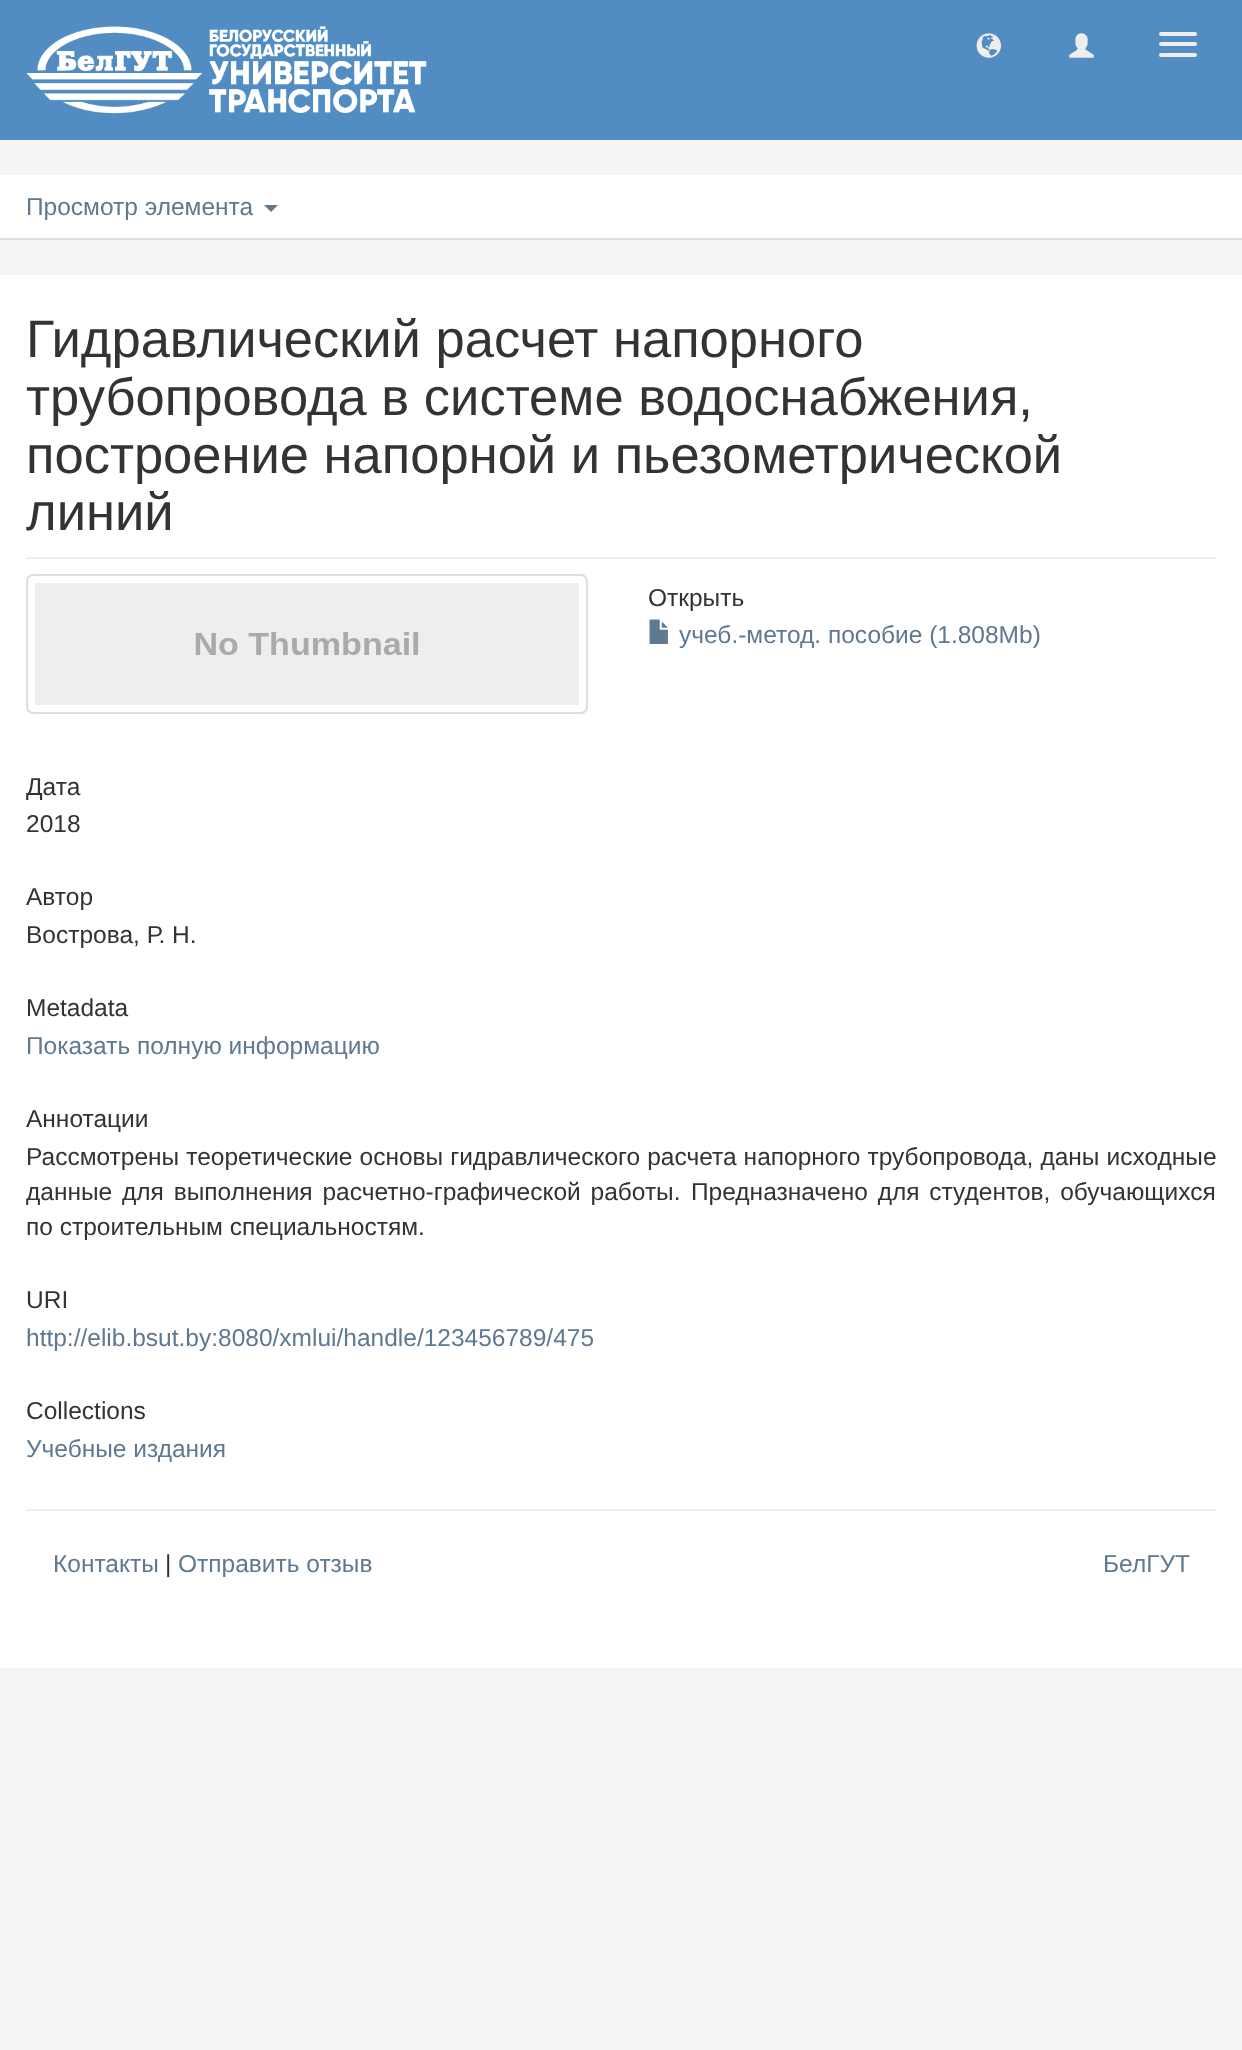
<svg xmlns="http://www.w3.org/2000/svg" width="1242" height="2050">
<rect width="100%" height="100%" fill="#f5f5f5"/>
<rect width="1242" height="140" fill="#518cc3"/>
<image x="26" y="26" width="401" height="88" href="media/1.png"/>
<image x="976" y="33" width="25" height="25" href="media/2.png"/>
<image x="1069" y="33" width="25" height="25" href="media/3.png"/>
<rect x="1159" y="32" width="38" height="4" rx="2" fill="#eee"/>
<rect x="1159" y="42" width="38" height="4" rx="2" fill="#eee"/>
<rect x="1159" y="53" width="38" height="4" rx="2" fill="#eee"/>
<rect y="175" width="1242" height="63" fill="#fff"/>
<rect y="238" width="1242" height="2" fill="#dfdfdf"/>
<text x="26" y="215" style="font-family:Liberation Sans;font-size:24.5px;fill:#607890">Просмотр элемента</text>
<path d="M264 205h14l-7 7z" fill="#607890"/>
<rect y="275" width="1242" height="1393" fill="#fff"/>
<rect x="26" y="557" width="1190" height="2" fill="#eee"/>
<text x="26" y="357" style="font-family:Liberation Sans;font-size:52.5px;fill:#333">Гидравлический расчет напорного</text>
<text x="26" y="415" style="font-family:Liberation Sans;font-size:52.5px;fill:#333">трубопровода в системе водоснабжения,</text>
<text x="26" y="473" style="font-family:Liberation Sans;font-size:52.5px;fill:#333">построение напорной и пьезометрической</text>
<text x="26" y="530" style="font-family:Liberation Sans;font-size:52.5px;fill:#333">линий</text>
<rect x="27" y="575" width="560" height="138" rx="6" fill="none" stroke="#ddd" stroke-width="2"/>
<image x="35" y="583" width="544" height="122" href="media/4.png"/>
<text x="648" y="606" style="font-family:Liberation Sans;font-size:24.5px;fill:#333">Открыть</text>
<image x="649" y="619" width="19" height="25" href="media/5.png"/>
<text x="679" y="643" style="font-family:Liberation Sans;font-size:24.5px;fill:#607890">учеб.-метод. пособие (1.808Mb)</text>
<text x="26" y="795" style="font-family:Liberation Sans;font-size:24.5px;fill:#333">Дата</text>
<text x="26" y="832" style="font-family:Liberation Sans;font-size:24.5px;fill:#333">2018</text>
<text x="26" y="905" style="font-family:Liberation Sans;font-size:24.5px;fill:#333">Автор</text>
<text x="26" y="943" style="font-family:Liberation Sans;font-size:24.5px;fill:#333">Вострова, Р. Н.</text>
<text x="26" y="1016" style="font-family:Liberation Sans;font-size:24.5px;fill:#333">Metadata</text>
<text x="26" y="1054" style="font-family:Liberation Sans;font-size:24.5px;fill:#607890">Показать полную информацию</text>
<text x="26" y="1127" style="font-family:Liberation Sans;font-size:24.5px;fill:#333">Аннотации</text>
<text x="26" y="1165" word-spacing="0.25" style="font-family:Liberation Sans;font-size:24.5px;fill:#333">Рассмотрены теоретические основы гидравлического расчета напорного трубопровода, даны исходные</text>
<text x="26" y="1200" word-spacing="3" style="font-family:Liberation Sans;font-size:24.5px;fill:#333">данные для выполнения расчетно-графической работы.</text>
<text x="691" y="1200" word-spacing="3" style="font-family:Liberation Sans;font-size:24.5px;fill:#333">Предназначено для студентов, обучающихся</text>
<text x="26" y="1235" style="font-family:Liberation Sans;font-size:24.5px;fill:#333">по строительным специальностям.</text>
<text x="26" y="1308" style="font-family:Liberation Sans;font-size:24.5px;fill:#333">URI</text>
<text x="26" y="1346" style="font-family:Liberation Sans;font-size:24.5px;fill:#607890">http://elib.bsut.by:8080/xmlui/handle/123456789/475</text>
<text x="26" y="1419" style="font-family:Liberation Sans;font-size:24.5px;fill:#333">Collections</text>
<text x="26" y="1457" style="font-family:Liberation Sans;font-size:24.5px;fill:#607890">Учебные издания</text>
<rect x="26" y="1509" width="1190" height="2" fill="#eee"/>
<text x="53" y="1572" style="font-family:Liberation Sans;font-size:24.5px;fill:#607890">Контакты</text>
<text x="165" y="1572" style="font-family:Liberation Sans;font-size:24.5px;fill:#333">|</text>
<text x="178" y="1572" style="font-family:Liberation Sans;font-size:24.5px;fill:#607890">Отправить отзыв</text>
<text x="1103" y="1572" style="font-family:Liberation Sans;font-size:24.5px;fill:#607890">БелГУТ</text>
</svg>
